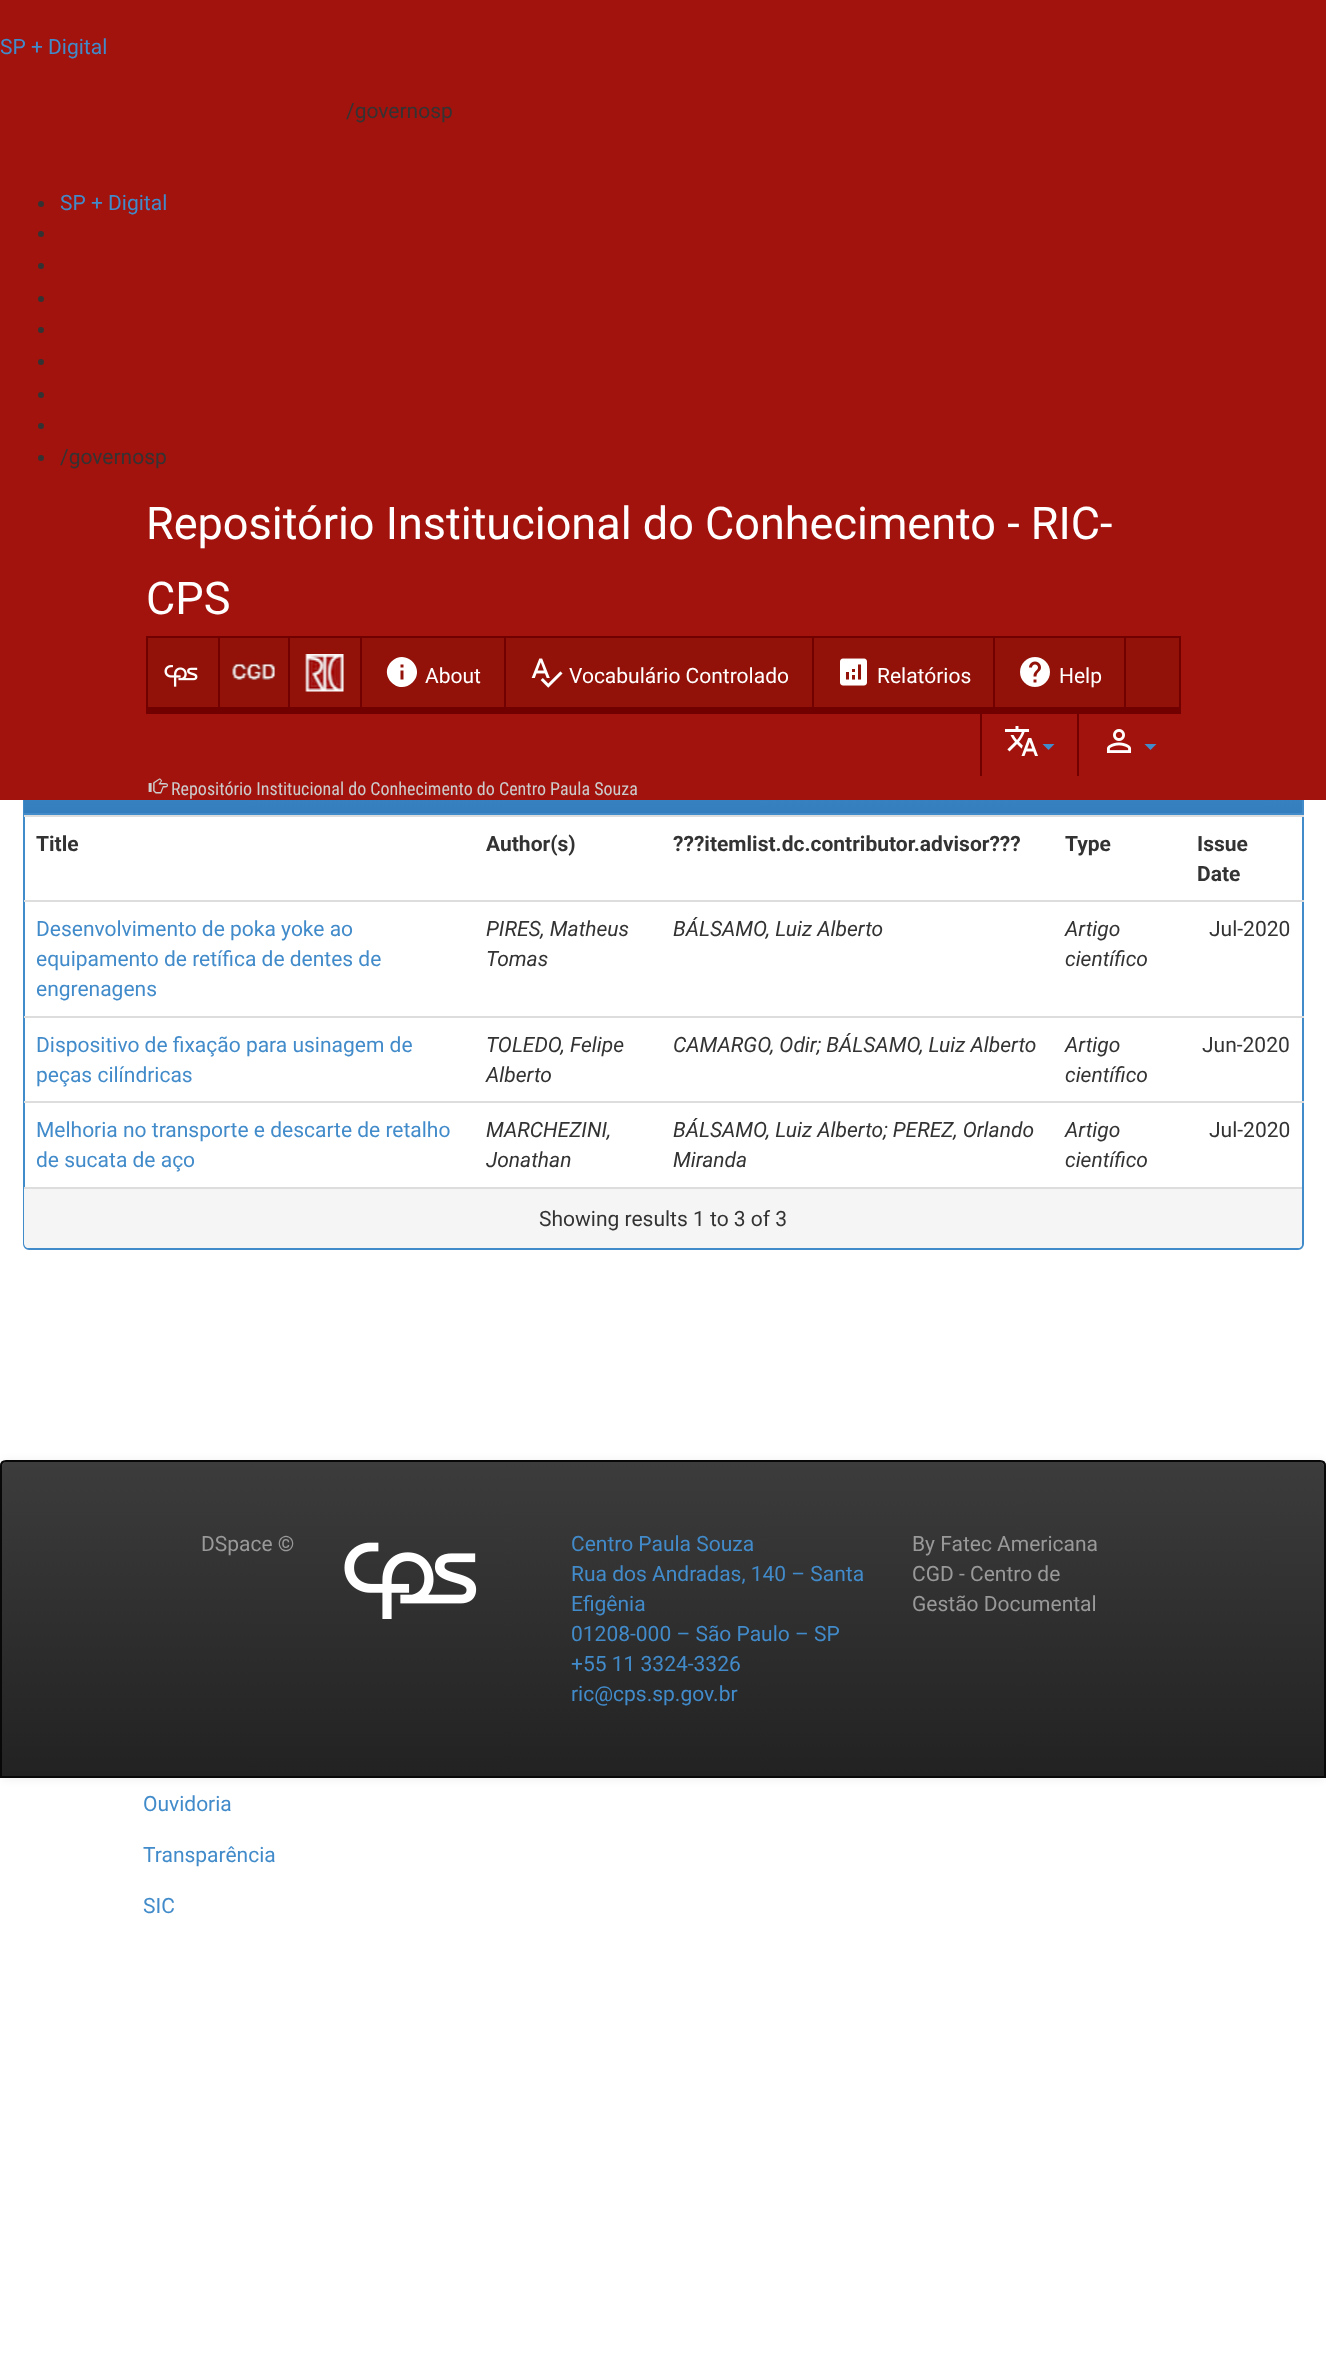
<svg xmlns="http://www.w3.org/2000/svg" width="1326" height="2361">
<defs>
<linearGradient id="g1" gradientUnits="userSpaceOnUse" x1="663" y1="753" x2="663" y2="813"><stop offset="0" stop-color="#428bca"/><stop offset="1" stop-color="#357ebd"/></linearGradient>
<clipPath id="clip1"><path d="M6 1460h1314c3.5 0 6 2.5 6 6v312h-1326v-312c0-3.5 2.5-6 6-6z"/></clipPath>
<linearGradient id="g2" gradientUnits="userSpaceOnUse" x1="663" y1="1461" x2="663" y2="1776"><stop offset="0" stop-color="#3c3c3c"/><stop offset="1" stop-color="#222"/></linearGradient>
</defs>
<rect width="100%" height="100%" fill="#fff"/>
<rect x="24" y="753" width="1279" height="496" rx="5" fill="none" stroke="#428bca" stroke-width="2"/>
<rect width="1326" height="800" fill="#a3130d"/>
<text x="0" y="54" style="font-family:Roboto;font-size:21px;fill:#428bca">SP + Digital</text>
<text x="346" y="118" style="font-family:Roboto;font-size:21px;fill:#333">/governosp</text>
<circle cx="41" cy="204" r="3" fill="#333"/>
<text x="60" y="210" style="font-family:Roboto;font-size:21px;fill:#428bca">SP + Digital</text>
<circle cx="41" cy="234" r="3" fill="#333"/>
<circle cx="41" cy="266" r="3" fill="#333"/>
<circle cx="41" cy="299" r="3" fill="#333"/>
<circle cx="41" cy="330" r="3" fill="#333"/>
<circle cx="41" cy="362" r="3" fill="#333"/>
<circle cx="41" cy="395" r="3" fill="#333"/>
<circle cx="41" cy="426" r="3" fill="#333"/>
<circle cx="41" cy="458" r="3" fill="#333"/>
<text x="60" y="464" style="font-family:Roboto;font-size:21px;fill:#333">/governosp</text>
<text x="146" y="539" style="font-family:Roboto;font-size:45px;fill:#fff">Repositório Institucional do Conhecimento - RIC-</text>
<text x="146" y="614" style="font-family:Roboto;font-size:45px;fill:#fff">CPS</text>
<rect x="148" y="638" width="1031" height="69" fill="#921209"/>
<rect x="146" y="636" width="1035" height="2" fill="#710000"/>
<rect x="1179" y="636" width="2" height="78" fill="#710000"/>
<rect x="146" y="707" width="1035" height="7" fill="#710000"/>
<rect x="146" y="636" width="2" height="78" fill="#710000"/>
<rect x="218" y="638" width="2" height="70" fill="#710000"/>
<image x="164" y="665" width="34" height="22" href="media/1.png"/>
<rect x="288" y="638" width="2" height="69" fill="#710000"/>
<image x="232" y="663" width="43" height="17" href="media/2.png"/>
<rect x="360" y="638" width="2" height="70" fill="#710000"/>
<image x="305" y="654" width="39" height="38" href="media/3.png"/>
<rect x="504" y="638" width="2" height="69" fill="#710000"/>
<path d="M403.5 667.5v-3h-3v3zm0 12v-9h-3v9zm-12-18c14-14 35 7 21 21c-14 14-35-7-21-21z" fill="#fff"/>
<text x="425" y="683" style="font-family:Roboto;font-size:21px;fill:#fff">About</text>
<rect x="812" y="638" width="2" height="69" fill="#710000"/>
<image x="531" y="658" width="32" height="30" href="media/4.png"/>
<text x="569" y="683" style="font-family:Roboto;font-size:21px;fill:#fff">Vocabulário Controlado</text>
<rect x="993" y="638" width="2" height="69" fill="#710000"/>
<image x="840" y="658" width="27" height="28" href="media/5.png"/>
<text x="877" y="683" style="font-family:Roboto;font-size:21px;fill:#fff">Relatórios</text>
<rect x="1124" y="638" width="2" height="69" fill="#710000"/>
<image x="1020" y="657" width="30" height="30" href="media/6.png"/>
<text x="1059" y="683" style="font-family:Roboto;font-size:21px;fill:#fff">Help</text>
<rect x="980" y="707" width="2" height="69" fill="#710000"/>
<image x="1004" y="726" width="34" height="30" href="media/7.png"/>
<path d="M1042.5 744h12l-6 6z" fill="#428bca"/>
<rect x="1077" y="707" width="2" height="69" fill="#710000"/>
<image x="1106" y="729" width="26" height="24" href="media/8.png"/>
<path d="M1144.5 744h12l-6 6z" fill="#428bca"/>
<image x="148" y="778" width="20" height="16" href="media/9.png"/>
<text x="171" y="795" style="font-family:Roboto Condensed;font-size:18px;fill:#ccc">Repositório Institucional do Conhecimento do Centro Paula Souza</text>
<rect x="24" y="813" width="1278" height="2" fill="#428bca"/>
<rect x="24" y="800" width="1278" height="13" fill="url(#g1)"/>
<text x="36" y="851" style="font-family:Roboto;font-size:21px;font-weight:bold;fill:#333">Title</text>
<text x="486" y="851" style="font-family:Roboto;font-size:21px;font-weight:bold;fill:#333">Author(s)</text>
<text x="673" y="851" style="font-family:Roboto;font-size:21px;font-weight:bold;fill:#333">???itemlist.dc.contributor.advisor???</text>
<text x="1065" y="851" style="font-family:Roboto;font-size:21px;font-weight:bold;fill:#333">Type</text>
<rect x="24" y="815" width="1280" height="2" fill="#ddd"/>
<text x="1197" y="851" style="font-family:Roboto;font-size:21px;font-weight:bold;fill:#333">Issue</text>
<text x="1197" y="881" style="font-family:Roboto;font-size:21px;font-weight:bold;fill:#333">Date</text>
<text x="36" y="936" style="font-family:Roboto;font-size:21px;fill:#428bca">Desenvolvimento de poka yoke ao</text>
<text x="36" y="966" style="font-family:Roboto;font-size:21px;fill:#428bca">equipamento de retífica de dentes de</text>
<text x="36" y="996" style="font-family:Roboto;font-size:21px;fill:#428bca">engrenagens</text>
<text x="486" y="936" style="font-family:Roboto;font-size:21px;font-style:italic;fill:#333">PIRES, Matheus</text>
<text x="486" y="966" style="font-family:Roboto;font-size:21px;font-style:italic;fill:#333">Tomas</text>
<text x="673" y="936" style="font-family:Roboto;font-size:21px;font-style:italic;fill:#333">BÁLSAMO, Luiz Alberto</text>
<text x="1065" y="936" style="font-family:Roboto;font-size:21px;font-style:italic;fill:#333">Artigo</text>
<text x="1065" y="966" style="font-family:Roboto;font-size:21px;font-style:italic;fill:#333">científico</text>
<rect x="24" y="900" width="1280" height="2" fill="#ddd"/>
<text x="1209" y="936" style="font-family:Roboto;font-size:21px;fill:#333">Jul-2020</text>
<text x="36" y="1052" style="font-family:Roboto;font-size:21px;fill:#428bca">Dispositivo de fixação para usinagem de</text>
<text x="36" y="1082" style="font-family:Roboto;font-size:21px;fill:#428bca">peças cilíndricas</text>
<text x="486" y="1052" style="font-family:Roboto;font-size:21px;font-style:italic;fill:#333">TOLEDO, Felipe</text>
<text x="486" y="1082" style="font-family:Roboto;font-size:21px;font-style:italic;fill:#333">Alberto</text>
<text x="673" y="1052" style="font-family:Roboto;font-size:21px;font-style:italic;fill:#333">CAMARGO, Odir; BÁLSAMO, Luiz Alberto</text>
<text x="1065" y="1052" style="font-family:Roboto;font-size:21px;font-style:italic;fill:#333">Artigo</text>
<text x="1065" y="1082" style="font-family:Roboto;font-size:21px;font-style:italic;fill:#333">científico</text>
<rect x="24" y="1016" width="1280" height="2" fill="#ddd"/>
<text x="1202" y="1052" style="font-family:Roboto;font-size:21px;fill:#333">Jun-2020</text>
<text x="36" y="1137" style="font-family:Roboto;font-size:21px;fill:#428bca">Melhoria no transporte e descarte de retalho</text>
<text x="36" y="1167" style="font-family:Roboto;font-size:21px;fill:#428bca">de sucata de aço</text>
<text x="486" y="1137" style="font-family:Roboto;font-size:21px;font-style:italic;fill:#333">MARCHEZINI,</text>
<text x="486" y="1167" style="font-family:Roboto;font-size:21px;font-style:italic;fill:#333">Jonathan</text>
<text x="673" y="1137" style="font-family:Roboto;font-size:21px;font-style:italic;fill:#333">BÁLSAMO, Luiz Alberto; PEREZ, Orlando</text>
<text x="673" y="1167" style="font-family:Roboto;font-size:21px;font-style:italic;fill:#333">Miranda</text>
<text x="1065" y="1137" style="font-family:Roboto;font-size:21px;font-style:italic;fill:#333">Artigo</text>
<text x="1065" y="1167" style="font-family:Roboto;font-size:21px;font-style:italic;fill:#333">científico</text>
<rect x="24" y="1101" width="1280" height="2" fill="#ddd"/>
<text x="1209" y="1137" style="font-family:Roboto;font-size:21px;fill:#333">Jul-2020</text>
<path d="M24 1187h1278v56c0 3-2 5-5 5h-1268c-3 0-5-2-5-5z" fill="#f5f5f5"/>
<rect x="24" y="1187" width="1278" height="2" fill="#ddd"/>
<text x="539" y="1226" style="font-family:Roboto;font-size:21px;fill:#333">Showing results 1 to 3 of 3</text>
<rect y="1461" width="1326" height="318" rx="6" fill="#00000012" filter="blur(4px)"/>
<g clip-path="url(#clip1)">
<rect y="1461" width="1326" height="315" fill="url(#g2)"/>
</g>
<path d="M6 1462h1314c2 0 4 3 4 5v309h1v-310c0-3-2-5-5-5h-1313c-3 0-5 2-5 5v1c0-2 2-5 4-5z" fill="#ffffff26"/>
<path d="M6 1461h1314c3 0 5 2 5 5v311h-1324v-311c0-3 2-5 5-5z" fill="none" stroke="#080808" stroke-width="2"/>
<text x="201" y="1551" style="font-family:Roboto;font-size:21px;fill:#999">DSpace ©</text>
<image x="344" y="1542" width="133" height="77" href="media/10.png"/>
<text x="571" y="1551" style="font-family:Roboto;font-size:21px;fill:#428bca">Centro Paula Souza</text>
<text x="912" y="1551" style="font-family:Roboto;font-size:21px;fill:#999">By Fatec Americana</text>
<text x="912" y="1581" style="font-family:Roboto;font-size:21px;fill:#999">CGD - Centro de</text>
<text x="912" y="1611" style="font-family:Roboto;font-size:21px;fill:#999">Gestão Documental</text>
<text x="571" y="1581" style="font-family:Roboto;font-size:21px;fill:#428bca">Rua dos Andradas, 140 – Santa</text>
<text x="571" y="1611" style="font-family:Roboto;font-size:21px;fill:#428bca">Efigênia</text>
<text x="571" y="1641" style="font-family:Roboto;font-size:21px;fill:#428bca">01208-000 – São Paulo – SP</text>
<text x="571" y="1671" style="font-family:Roboto;font-size:21px;fill:#428bca">+55 11 3324-3326</text>
<text x="571" y="1701" style="font-family:Roboto;font-size:21px;fill:#428bca">ric@cps.sp.gov.br</text>
<text x="143" y="1811" style="font-family:Roboto;font-size:21px;fill:#428bca">Ouvidoria</text>
<text x="143" y="1862" style="font-family:Roboto;font-size:21px;fill:#428bca">Transparência</text>
<text x="143" y="1913" style="font-family:Roboto;font-size:21px;fill:#428bca">SIC</text>
</svg>
